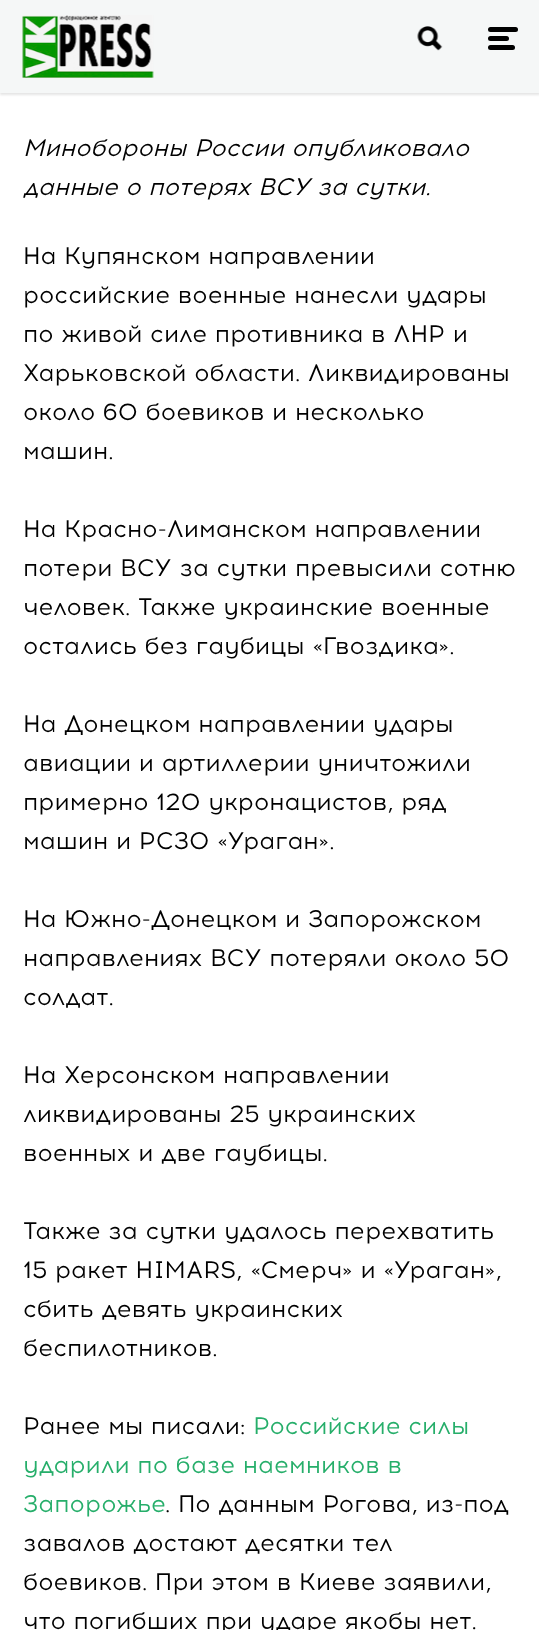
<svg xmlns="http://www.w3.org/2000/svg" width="539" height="1630">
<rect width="100%" height="100%" fill="#fff"/>
<rect y="2" width="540" height="93" fill="#0000001a" filter="blur(1px)"/>
<rect width="539" height="93" fill="#f5f7f7"/>
<image x="22" y="15" width="132" height="63" href="media/1.png"/>
<image x="417" y="26" width="26" height="25" href="media/2.png"/>
<rect x="488" y="27" width="30" height="5" rx="2.5" fill="#000"/>
<rect x="488" y="36" width="21" height="5" rx="2.5" fill="#000"/>
<rect x="488" y="45" width="27" height="5" rx="2.5" fill="#000"/>
<text x="23" y="156" style="font-family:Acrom;font-size:24px;font-style:italic;fill:#000">Минобороны России опубликовало</text>
<text x="23" y="195" style="font-family:Acrom;font-size:24px;font-style:italic;fill:#000">данные о потерях ВСУ за сутки.</text>
<text x="23" y="264" style="font-family:Acrom;font-size:24px;fill:#000">На Купянском направлении</text>
<text x="23" y="303" style="font-family:Acrom;font-size:24px;fill:#000">российские военные нанесли удары</text>
<text x="23" y="342" style="font-family:Acrom;font-size:24px;fill:#000">по живой силе противника в ЛНР и</text>
<text x="23" y="381" style="font-family:Acrom;font-size:24px;fill:#000">Харьковской области. Ликвидированы</text>
<text x="23" y="420" style="font-family:Acrom;font-size:24px;fill:#000">около 60 боевиков и несколько</text>
<text x="23" y="459" style="font-family:Acrom;font-size:24px;fill:#000">машин.</text>
<text x="23" y="537" style="font-family:Acrom;font-size:24px;fill:#000">На Красно-Лиманском направлении</text>
<text x="23" y="576" style="font-family:Acrom;font-size:24px;fill:#000">потери ВСУ за сутки превысили сотню</text>
<text x="23" y="615" style="font-family:Acrom;font-size:24px;fill:#000">человек. Также украинские военные</text>
<text x="23" y="654" style="font-family:Acrom;font-size:24px;fill:#000">остались без гаубицы «Гвоздика».</text>
<text x="23" y="732" style="font-family:Acrom;font-size:24px;fill:#000">На Донецком направлении удары</text>
<text x="23" y="771" style="font-family:Acrom;font-size:24px;fill:#000">авиации и артиллерии уничтожили</text>
<text x="23" y="810" style="font-family:Acrom;font-size:24px;fill:#000">примерно 120 укронацистов, ряд</text>
<text x="23" y="849" style="font-family:Acrom;font-size:24px;fill:#000">машин и РСЗО «Ураган».</text>
<text x="23" y="927" style="font-family:Acrom;font-size:24px;fill:#000">На Южно-Донецком и Запорожском</text>
<text x="23" y="966" style="font-family:Acrom;font-size:24px;fill:#000">направлениях ВСУ потеряли около 50</text>
<text x="23" y="1005" style="font-family:Acrom;font-size:24px;fill:#000">солдат.</text>
<text x="23" y="1083" style="font-family:Acrom;font-size:24px;fill:#000">На Херсонском направлении</text>
<text x="23" y="1122" style="font-family:Acrom;font-size:24px;fill:#000">ликвидированы 25 украинских</text>
<text x="23" y="1161" style="font-family:Acrom;font-size:24px;fill:#000">военных и две гаубицы.</text>
<text x="23" y="1239" style="font-family:Acrom;font-size:24px;fill:#000">Также за сутки удалось перехватить</text>
<text x="23" y="1278" style="font-family:Acrom;font-size:24px;fill:#000">15 ракет HIMARS, «Смерч» и «Ураган»,</text>
<text x="23" y="1317" style="font-family:Acrom;font-size:24px;fill:#000">сбить девять украинских</text>
<text x="23" y="1356" style="font-family:Acrom;font-size:24px;fill:#000">беспилотников.</text>
<text x="23" y="1434" style="font-family:Acrom;font-size:24px;fill:#000">Ранее мы писали:</text>
<text x="253" y="1434" style="font-family:Acrom;font-size:24px;fill:#26ae6a">Российские силы</text>
<text x="23" y="1473" style="font-family:Acrom;font-size:24px;fill:#26ae6a">ударили по базе наемников в</text>
<text x="23" y="1512" style="font-family:Acrom;font-size:24px;fill:#26ae6a">Запорожье</text>
<text x="165" y="1512" style="font-family:Acrom;font-size:24px;fill:#000">. По данным Рогова, из-под</text>
<text x="23" y="1551" style="font-family:Acrom;font-size:24px;fill:#000">завалов достают десятки тел</text>
<text x="23" y="1590" style="font-family:Acrom;font-size:24px;fill:#000">боевиков. При этом в Киеве заявили,</text>
<text x="23" y="1629" style="font-family:Acrom;font-size:24px;fill:#000">что погибших при ударе якобы нет.</text>
</svg>
